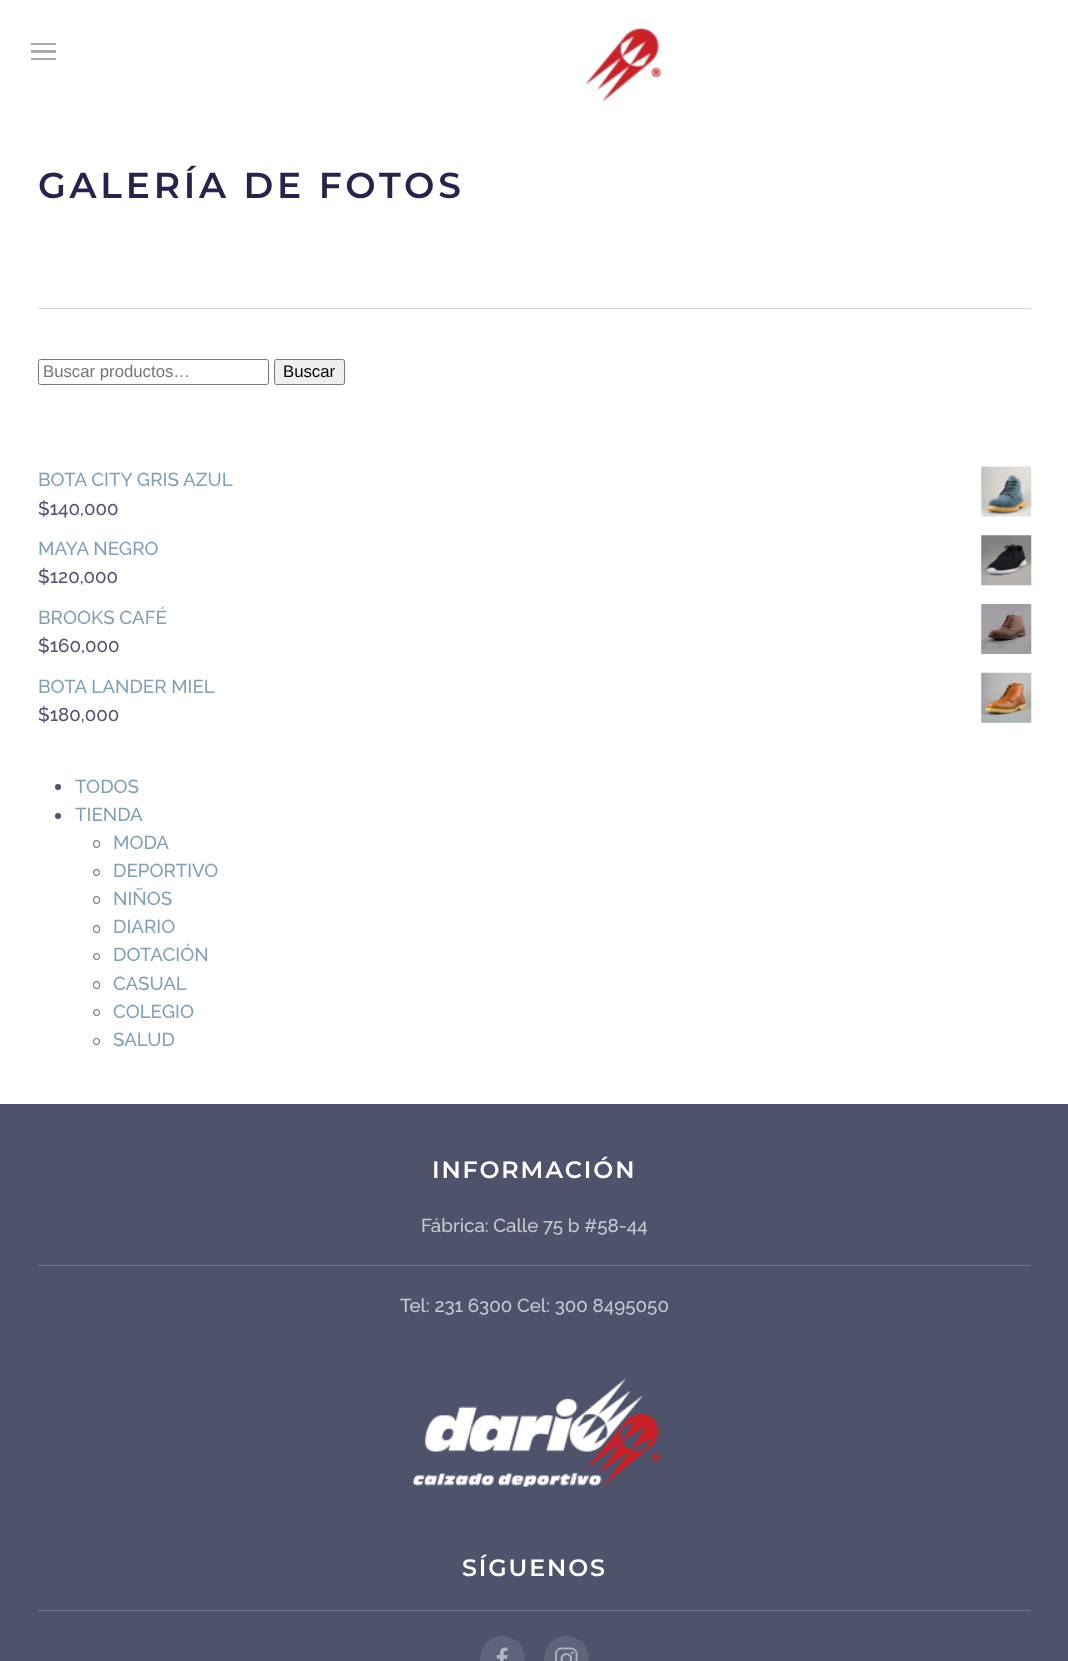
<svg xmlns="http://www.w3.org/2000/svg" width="1068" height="1661">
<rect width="100%" height="100%" fill="#fff"/>
<rect x="31" y="43" width="25" height="2" fill="#a8a7b7"/>
<rect x="31" y="50" width="25" height="3" fill="#a8a7b7"/>
<rect x="31" y="58" width="25" height="2" fill="#a8a7b7"/>
<image x="585" y="27" width="77" height="75" href="media/1.png"/>
<text x="38" y="198" style="font-family:Montserrat;font-size:36.1px;font-weight:600;letter-spacing:3.75px;fill:#26244c">GALERÍA DE FOTOS</text>
<rect x="38" y="308" width="993" height="1" fill="#d4d3db"/>
<rect x="38.5" y="359.5" width="230" height="25" rx="2" fill="none" stroke="#767676"/>
<text x="43" y="377" style="font-family:Liberation Sans;font-size:16.75px;fill:#757575">Buscar productos…</text>
<rect x="274.5" y="359.5" width="70" height="25" rx="2" fill="#efefef" stroke="#767676"/>
<text x="283" y="377" style="font-family:Liberation Sans;font-size:16.75px;fill:#000">Buscar</text>
<text x="38" y="486" style="font-family:Raleway;font-size:18.75px;font-weight:100;fill:#82a0b5">BOTA CITY GRIS AZUL</text>
<image x="981" y="466" width="51" height="51" href="media/2.png"/>
<text x="38" y="515" style="font-family:Raleway;font-size:18.75px;font-weight:100;fill:#515070">$140,000</text>
<text x="38" y="555" style="font-family:Raleway;font-size:18.75px;font-weight:100;fill:#82a0b5">MAYA NEGRO</text>
<image x="981" y="535" width="51" height="51" href="media/3.png"/>
<text x="38" y="583" style="font-family:Raleway;font-size:18.75px;font-weight:100;fill:#515070">$120,000</text>
<text x="38" y="624" style="font-family:Raleway;font-size:18.75px;font-weight:100;fill:#82a0b5">BROOKS CAFÉ</text>
<image x="981" y="604" width="51" height="50" href="media/4.png"/>
<text x="38" y="652" style="font-family:Raleway;font-size:18.75px;font-weight:100;fill:#515070">$160,000</text>
<text x="38" y="693" style="font-family:Raleway;font-size:18.75px;font-weight:100;fill:#82a0b5">BOTA LANDER MIEL</text>
<image x="981" y="672" width="51" height="51" href="media/5.png"/>
<text x="38" y="721" style="font-family:Raleway;font-size:18.75px;font-weight:100;fill:#515070">$180,000</text>
<circle cx="58" cy="787" r="3" fill="#515070"/>
<text x="75" y="793" style="font-family:Raleway;font-size:18.75px;font-weight:100;fill:#82a0b5">TODOS</text>
<circle cx="58" cy="816" r="3" fill="#515070"/>
<text x="75" y="821" style="font-family:Raleway;font-size:18.75px;font-weight:100;fill:#82a0b5">TIENDA</text>
<rect x="93.5" y="840.5" width="6" height="7" rx="3" fill="none" stroke="#515070"/>
<text x="113" y="849" style="font-family:Raleway;font-size:18.75px;font-weight:100;fill:#82a0b5">MODA</text>
<circle cx="96.5" cy="872.5" r="3" fill="none" stroke="#515070"/>
<text x="113" y="877" style="font-family:Raleway;font-size:18.75px;font-weight:100;fill:#82a0b5">DEPORTIVO</text>
<rect x="93.5" y="896.5" width="6" height="7" rx="3" fill="none" stroke="#515070"/>
<text x="113" y="905" style="font-family:Raleway;font-size:18.75px;font-weight:100;fill:#82a0b5">NIÑOS</text>
<rect x="93.5" y="925.5" width="6" height="7" rx="3" fill="none" stroke="#515070"/>
<text x="113" y="933" style="font-family:Raleway;font-size:18.75px;font-weight:100;fill:#82a0b5">DIARIO</text>
<circle cx="96.5" cy="956.5" r="3" fill="none" stroke="#515070"/>
<text x="113" y="961" style="font-family:Raleway;font-size:18.75px;font-weight:100;fill:#82a0b5">DOTACIÓN</text>
<rect x="93.5" y="981.5" width="6" height="7" rx="3" fill="none" stroke="#515070"/>
<text x="113" y="990" style="font-family:Raleway;font-size:18.75px;font-weight:100;fill:#82a0b5">CASUAL</text>
<circle cx="96.5" cy="1012.5" r="3" fill="none" stroke="#515070"/>
<text x="113" y="1018" style="font-family:Raleway;font-size:18.75px;font-weight:100;fill:#82a0b5">COLEGIO</text>
<circle cx="96.5" cy="1041.5" r="3" fill="none" stroke="#515070"/>
<text x="113" y="1046" style="font-family:Raleway;font-size:18.75px;font-weight:100;fill:#82a0b5">SALUD</text>
<rect y="1104" width="1068" height="557" fill="#4e536b"/>
<text x="432" y="1178" style="font-family:Montserrat;font-size:23.75px;font-weight:600;letter-spacing:1.9px;fill:#fff">INFORMACIÓN</text>
<text x="421" y="1232" style="font-family:Raleway;font-size:18.75px;font-weight:100;fill:#cacbd3">Fábrica: Calle 75 b #58-44</text>
<rect x="38" y="1265" width="993" height="1" fill="#717589"/>
<text x="400" y="1312" style="font-family:Raleway;font-size:18.75px;font-weight:100;fill:#cacbd3">Tel: 231 6300 Cel: 300 8495050</text>
<image x="412" y="1378" width="250" height="109" href="media/6.png"/>
<text x="462" y="1576" style="font-family:Montserrat;font-size:23.75px;font-weight:600;letter-spacing:1.9px;fill:#fff">SÍGUENOS</text>
<rect x="38" y="1610" width="993" height="1" fill="#717589"/>
<circle cx="502.5" cy="1658.5" r="22.5" fill="#60647a"/>
<image x="496" y="1647" width="12" height="14" href="media/7.png"/>
<circle cx="566.5" cy="1658.5" r="22.5" fill="#60647a"/>
<image x="555" y="1647" width="23" height="14" href="media/8.png"/>
</svg>
